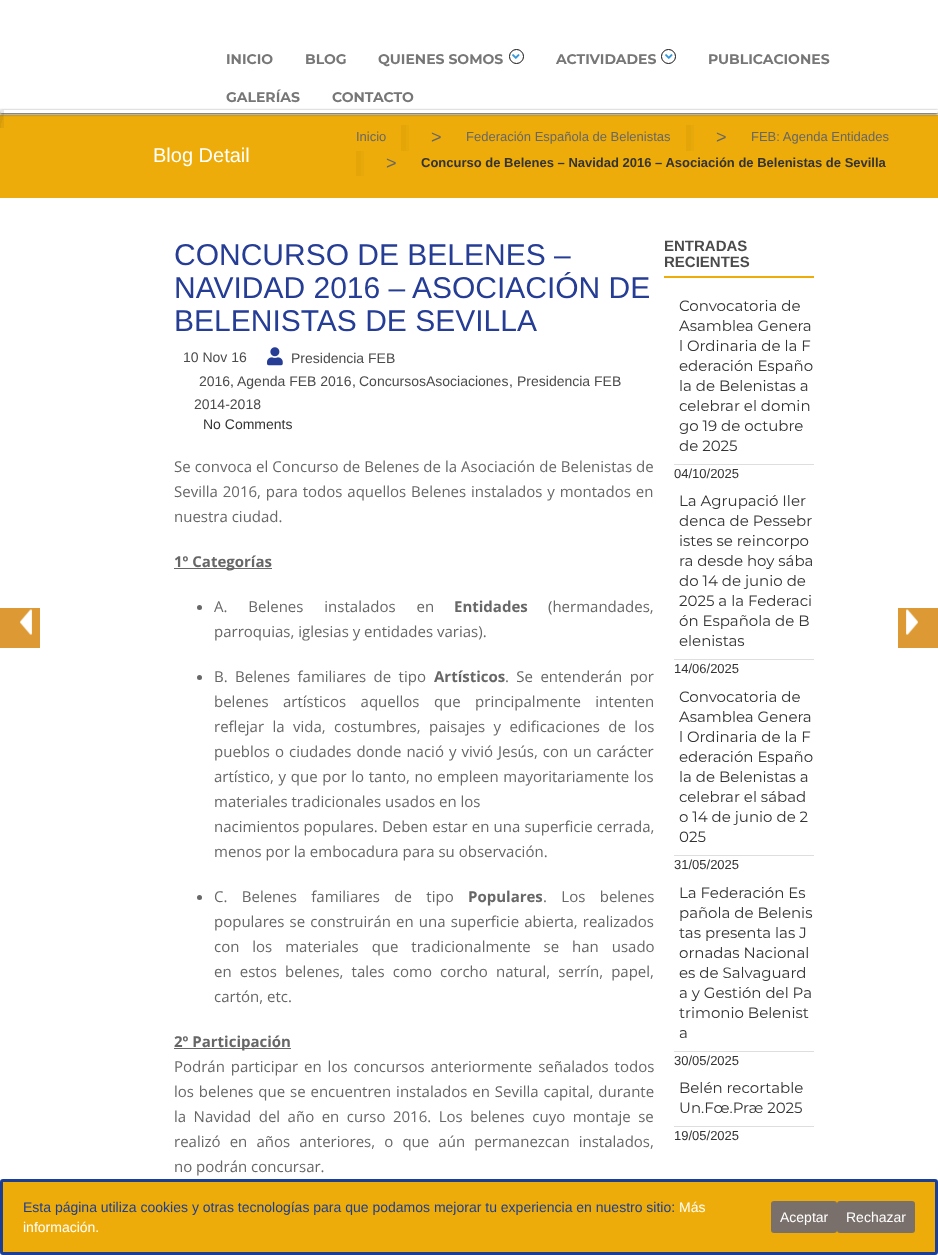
<svg xmlns="http://www.w3.org/2000/svg" width="938" height="1255">
<defs>
<clipPath id="clip1"><path d="M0 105h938v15h-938zm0 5h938v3h-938z" clip-rule="evenodd"/></clipPath>
</defs>
<rect width="100%" height="100%" fill="#fff"/>
<rect y="115" width="938" height="83" fill="#edac09"/>
<text x="153" y="162" style="font-family:Liberation Sans;font-size:20px;fill:#fff">Blog Detail</text>
<rect y="111" width="938" height="2" fill="#edac09"/>
<rect width="938" height="115" rx="4" fill="#fff"/>
<text x="226" y="64" style="font-family:Montserrat;font-size:14px;font-weight:bold;fill:#777">INICIO</text>
<text x="305" y="64" style="font-family:Montserrat;font-size:14px;font-weight:bold;fill:#777">BLOG</text>
<text x="378" y="64" style="font-family:Montserrat;font-size:14px;font-weight:bold;fill:#777">QUIENES SOMOS</text>
<circle cx="516.5" cy="56.5" r="7" fill="none" stroke="#121212"/>
<image x="512" y="54" width="8" height="5" href="media/1.png"/>
<text x="556" y="64" style="font-family:Montserrat;font-size:14px;font-weight:bold;fill:#777">ACTIVIDADES</text>
<circle cx="668.5" cy="56.5" r="7" fill="none" stroke="#121212"/>
<image x="665" y="54" width="8" height="5" href="media/1.png"/>
<text x="708" y="64" style="font-family:Montserrat;font-size:14px;font-weight:bold;fill:#777">PUBLICACIONES</text>
<text x="226" y="102" style="font-family:Montserrat;font-size:14px;font-weight:bold;fill:#777">GALERÍAS</text>
<text x="332" y="102" style="font-family:Montserrat;font-size:14px;font-weight:bold;fill:#777">CONTACTO</text>
<text x="356" y="141" style="font-family:Liberation Sans;font-size:13px;fill:#676767">Inicio</text>
<image x="401" y="125" width="8" height="26" href="media/2.png"/>
<image x="0" y="110" width="4" height="18" href="media/3.png"/>
<text x="431" y="143" style="font-family:Liberation Sans;font-size:18px;fill:#676767">&gt;</text>
<text x="466" y="141" style="font-family:Liberation Sans;font-size:13px;fill:#676767">Federación Española de Belenistas</text>
<image x="686" y="125" width="8" height="26" href="media/2.png"/>
<image x="0" y="110" width="4" height="18" href="media/4.png"/>
<text x="716" y="143" style="font-family:Liberation Sans;font-size:18px;fill:#676767">&gt;</text>
<text x="751" y="141" style="font-family:Liberation Sans;font-size:13px;fill:#676767">FEB: Agenda Entidades</text>
<image x="356" y="151" width="8" height="25" href="media/5.png"/>
<image x="0" y="110" width="4" height="18" href="media/6.png"/>
<text x="386" y="169" style="font-family:Liberation Sans;font-size:18px;fill:#676767">&gt;</text>
<text x="421" y="167" style="font-family:Liberation Sans;font-size:13px;font-weight:bold;fill:#333">Concurso de Belenes – Navidad 2016 – Asociación de Belenistas de Sevilla</text>
<g clip-path="url(#clip1)">
<rect y="111" width="938" height="3" fill="#333" filter="blur(1.5px)"/>
</g>
<text x="174" y="265" style="font-family:Liberation Sans;font-size:30px;fill:#263d96">CONCURSO DE BELENES –</text>
<text x="174" y="298" style="font-family:Liberation Sans;font-size:30px;fill:#263d96">NAVIDAD 2016 – ASOCIACIÓN DE</text>
<text x="174" y="331" style="font-family:Liberation Sans;font-size:30px;fill:#263d96">BELENISTAS DE SEVILLA</text>
<text x="183" y="362" style="font-family:Liberation Sans;font-size:14px;fill:#4b4b4b">10 Nov 16</text>
<image x="267" y="347" width="16" height="19" href="media/7.png"/>
<text x="291" y="363" style="font-family:Liberation Sans;font-size:14px;fill:#4b4b4b">Presidencia FEB</text>
<text x="199" y="386" style="font-family:Liberation Sans;font-size:14px;fill:#4b4b4b">2016</text>
<text x="230" y="386" style="font-family:Liberation Sans;font-size:14px;fill:#333">,</text>
<text x="237" y="386" style="font-family:Liberation Sans;font-size:14px;fill:#4b4b4b">Agenda FEB 2016</text>
<text x="352" y="386" style="font-family:Liberation Sans;font-size:14px;fill:#333">,</text>
<text x="359" y="386" style="font-family:Liberation Sans;font-size:14px;fill:#4b4b4b">ConcursosAsociaciones</text>
<text x="509" y="386" style="font-family:Liberation Sans;font-size:14px;fill:#333">,</text>
<text x="517" y="386" style="font-family:Liberation Sans;font-size:14px;fill:#4b4b4b">Presidencia FEB</text>
<text x="194" y="409" style="font-family:Liberation Sans;font-size:14px;fill:#4b4b4b">2014-2018</text>
<text x="203" y="429" style="font-family:Liberation Sans;font-size:14px;fill:#333">No Comments</text>
<text x="174" y="472" word-spacing="0.1" style="font-family:Open Sans;font-size:15px;fill:#676767">Se convoca el Concurso de Belenes de la Asociación de Belenistas de</text>
<text x="174" y="497" word-spacing="1" style="font-family:Open Sans;font-size:15px;fill:#676767">Sevilla 2016, para todos aquellos Belenes instalados y montados en</text>
<text x="174" y="522" style="font-family:Open Sans;font-size:15px;fill:#676767">nuestra ciudad.</text>
<rect x="174" y="568" width="98" height="1" fill="#676767"/>
<text x="174" y="567" style="font-family:Open Sans;font-size:15px;font-weight:bold;fill:#676767">1º Categorías</text>
<circle cx="199.5" cy="607.5" r="2.5" fill="#676767"/>
<text x="214" y="612" word-spacing="17" style="font-family:Open Sans;font-size:15px;fill:#676767">A. Belenes instalados en</text>
<text x="454" y="612" style="font-family:Open Sans;font-size:15px;font-weight:bold;fill:#676767">Entidades</text>
<text x="548" y="612" style="font-family:Open Sans;font-size:15px;fill:#676767">(hermandades,</text>
<text x="214" y="637" style="font-family:Open Sans;font-size:15px;fill:#676767">parroquias, iglesias y entidades varias).</text>
<circle cx="199.5" cy="677.5" r="2.5" fill="#676767"/>
<text x="214" y="682" word-spacing="3.5" style="font-family:Open Sans;font-size:15px;fill:#676767">B. Belenes familiares de tipo</text>
<text x="434" y="682" style="font-family:Open Sans;font-size:15px;font-weight:bold;fill:#676767">Artísticos</text>
<text x="505" y="682" word-spacing="3.5" style="font-family:Open Sans;font-size:15px;fill:#676767">. Se entenderán por</text>
<text x="214" y="707" word-spacing="10.5" style="font-family:Open Sans;font-size:15px;fill:#676767">belenes artísticos aquellos que principalmente intenten</text>
<text x="214" y="732" word-spacing="4.5" style="font-family:Open Sans;font-size:15px;fill:#676767">reflejar la vida, costumbres, paisajes y edificaciones de los</text>
<text x="214" y="757" word-spacing="1.1" style="font-family:Open Sans;font-size:15px;fill:#676767">pueblos o ciudades donde nació y vivió Jesús, con un carácter</text>
<text x="214" y="782" word-spacing="0.75" style="font-family:Open Sans;font-size:15px;fill:#676767">artístico, y que por lo tanto, no empleen mayoritariamente los</text>
<text x="214" y="807" style="font-family:Open Sans;font-size:15px;fill:#676767">materiales tradicionales usados en los</text>
<text x="214" y="832" word-spacing="0.25" style="font-family:Open Sans;font-size:15px;fill:#676767">nacimientos populares. Deben estar en una superficie cerrada,</text>
<text x="214" y="857" style="font-family:Open Sans;font-size:15px;fill:#676767">menos por la embocadura para su observación.</text>
<circle cx="199.5" cy="897.5" r="2.5" fill="#676767"/>
<text x="214" y="902" word-spacing="10.5" style="font-family:Open Sans;font-size:15px;fill:#676767">C. Belenes familiares de tipo</text>
<text x="468" y="902" style="font-family:Open Sans;font-size:15px;font-weight:bold;fill:#676767">Populares</text>
<text x="543" y="902" word-spacing="10.5" style="font-family:Open Sans;font-size:15px;fill:#676767">. Los belenes</text>
<text x="214" y="927" word-spacing="1.25" style="font-family:Open Sans;font-size:15px;fill:#676767">populares se construirán en una superficie abierta, realizados</text>
<text x="214" y="952" word-spacing="9" style="font-family:Open Sans;font-size:15px;fill:#676767">con los materiales que tradicionalmente se han usado</text>
<text x="214" y="977" word-spacing="4.25" style="font-family:Open Sans;font-size:15px;fill:#676767">en estos belenes, tales como corcho natural, serrín, papel,</text>
<text x="214" y="1002" style="font-family:Open Sans;font-size:15px;fill:#676767">cartón, etc.</text>
<rect x="174" y="1048" width="117" height="1" fill="#676767"/>
<text x="174" y="1047" style="font-family:Open Sans;font-size:15px;font-weight:bold;fill:#676767">2º Participación</text>
<text x="174" y="1072" word-spacing="2" style="font-family:Open Sans;font-size:15px;fill:#676767">Podrán participar en los concursos anteriormente señalados todos</text>
<text x="174" y="1097" word-spacing="1" style="font-family:Open Sans;font-size:15px;fill:#676767">los belenes que se encuentren instalados en Sevilla capital, durante</text>
<text x="174" y="1122" word-spacing="3.6" style="font-family:Open Sans;font-size:15px;fill:#676767">la Navidad del año en curso 2016. Los belenes cuyo montaje se</text>
<text x="174" y="1147" word-spacing="5.25" style="font-family:Open Sans;font-size:15px;fill:#676767">realizó en años anteriores, o que aún permanezcan instalados,</text>
<text x="174" y="1172" style="font-family:Open Sans;font-size:15px;fill:#676767">no podrán concursar.</text>
<rect x="664" y="276" width="150" height="2" fill="#edac09"/>
<text x="664" y="251" style="font-family:Liberation Sans;font-size:15px;font-weight:bold;fill:#4b4b4b">ENTRADAS</text>
<text x="664" y="267" style="font-family:Liberation Sans;font-size:15px;font-weight:bold;fill:#4b4b4b">RECIENTES</text>
<rect x="674" y="464" width="140" height="1" fill="#dedede"/>
<text x="679" y="311" style="font-family:Montserrat;font-size:15px;fill:#333">Convocatoria de</text>
<text x="679" y="331" style="font-family:Montserrat;font-size:15px;fill:#333">Asamblea Genera</text>
<text x="679" y="351" style="font-family:Montserrat;font-size:15px;fill:#333">l Ordinaria de la F</text>
<text x="679" y="371" style="font-family:Montserrat;font-size:15px;fill:#333">ederación Españo</text>
<text x="679" y="391" style="font-family:Montserrat;font-size:15px;fill:#333">la de Belenistas a</text>
<text x="679" y="411" style="font-family:Montserrat;font-size:15px;fill:#333">celebrar el domin</text>
<text x="679" y="431" style="font-family:Montserrat;font-size:15px;fill:#333">go 19 de octubre</text>
<text x="679" y="451" style="font-family:Montserrat;font-size:15px;fill:#333">de 2025</text>
<text x="674" y="478" style="font-family:Liberation Sans;font-size:13px;fill:#333">04/10/2025</text>
<rect x="674" y="659" width="140" height="1" fill="#dedede"/>
<text x="679" y="506" style="font-family:Montserrat;font-size:15px;fill:#333">La Agrupació Iler</text>
<text x="679" y="526" style="font-family:Montserrat;font-size:15px;fill:#333">denca de Pessebr</text>
<text x="679" y="546" style="font-family:Montserrat;font-size:15px;fill:#333">istes se reincorpo</text>
<text x="679" y="566" style="font-family:Montserrat;font-size:15px;fill:#333">ra desde hoy sába</text>
<text x="679" y="586" style="font-family:Montserrat;font-size:15px;fill:#333">do 14 de junio de</text>
<text x="679" y="606" style="font-family:Montserrat;font-size:15px;fill:#333">2025 a la Federaci</text>
<text x="679" y="626" style="font-family:Montserrat;font-size:15px;fill:#333">ón Española de B</text>
<text x="679" y="646" style="font-family:Montserrat;font-size:15px;fill:#333">elenistas</text>
<text x="674" y="673" style="font-family:Liberation Sans;font-size:13px;fill:#333">14/06/2025</text>
<rect x="674" y="855" width="140" height="1" fill="#dedede"/>
<text x="679" y="702" style="font-family:Montserrat;font-size:15px;fill:#333">Convocatoria de</text>
<text x="679" y="722" style="font-family:Montserrat;font-size:15px;fill:#333">Asamblea Genera</text>
<text x="679" y="742" style="font-family:Montserrat;font-size:15px;fill:#333">l Ordinaria de la F</text>
<text x="679" y="762" style="font-family:Montserrat;font-size:15px;fill:#333">ederación Españo</text>
<text x="679" y="782" style="font-family:Montserrat;font-size:15px;fill:#333">la de Belenistas a</text>
<text x="679" y="802" style="font-family:Montserrat;font-size:15px;fill:#333">celebrar el sábad</text>
<text x="679" y="822" style="font-family:Montserrat;font-size:15px;fill:#333">o 14 de junio de 2</text>
<text x="679" y="842" style="font-family:Montserrat;font-size:15px;fill:#333">025</text>
<text x="674" y="869" style="font-family:Liberation Sans;font-size:13px;fill:#333">31/05/2025</text>
<rect x="674" y="1051" width="140" height="1" fill="#dedede"/>
<text x="679" y="898" style="font-family:Montserrat;font-size:15px;fill:#333">La Federación Es</text>
<text x="679" y="918" style="font-family:Montserrat;font-size:15px;fill:#333">pañola de Belenis</text>
<text x="679" y="938" style="font-family:Montserrat;font-size:15px;fill:#333">tas presenta las J</text>
<text x="679" y="958" style="font-family:Montserrat;font-size:15px;fill:#333">ornadas Nacional</text>
<text x="679" y="978" style="font-family:Montserrat;font-size:15px;fill:#333">es de Salvaguard</text>
<text x="679" y="998" style="font-family:Montserrat;font-size:15px;fill:#333">a y Gestión del Pa</text>
<text x="679" y="1018" style="font-family:Montserrat;font-size:15px;fill:#333">trimonio Belenist</text>
<text x="679" y="1038" style="font-family:Montserrat;font-size:15px;fill:#333">a</text>
<text x="674" y="1065" style="font-family:Liberation Sans;font-size:13px;fill:#333">30/05/2025</text>
<rect x="674" y="1126" width="140" height="1" fill="#dedede"/>
<text x="679" y="1093" style="font-family:Montserrat;font-size:15px;fill:#333">Belén recortable</text>
<text x="679" y="1113" style="font-family:Montserrat;font-size:15px;fill:#333">Un.Fœ.Præ 2025</text>
<text x="674" y="1140" style="font-family:Liberation Sans;font-size:13px;fill:#333">19/05/2025</text>
<rect y="608" width="40" height="40" fill="#d93"/>
<image x="20" y="609" width="12" height="26" href="media/8.png"/>
<rect x="898" y="608" width="40" height="40" fill="#d93"/>
<image x="906" y="609" width="12" height="26" href="media/9.png"/>
<rect x="1.5" y="1180.5" width="935" height="73" rx="1.5" fill="#edac09" stroke="#1c3e95" stroke-width="3"/>
<text x="23" y="1212" style="font-family:Liberation Sans;font-size:14px;fill:#1c3e95">Esta página utiliza cookies y otras tecnologías para que podamos mejorar tu experiencia en nuestro sitio:</text>
<text x="679" y="1212" style="font-family:Liberation Sans;font-size:14px;fill:#fff">Más</text>
<text x="23" y="1232" style="font-family:Liberation Sans;font-size:14px;fill:#fff">información.</text>
<rect x="771" y="1201" width="66" height="32" rx="3" fill="#7a706b"/>
<text x="780" y="1222" style="font-family:Liberation Sans;font-size:14px;fill:#fff">Aceptar</text>
<rect x="837" y="1201" width="78" height="32" rx="3" fill="#7a706b"/>
<text x="846" y="1222" style="font-family:Liberation Sans;font-size:14px;fill:#fff">Rechazar</text>
</svg>
